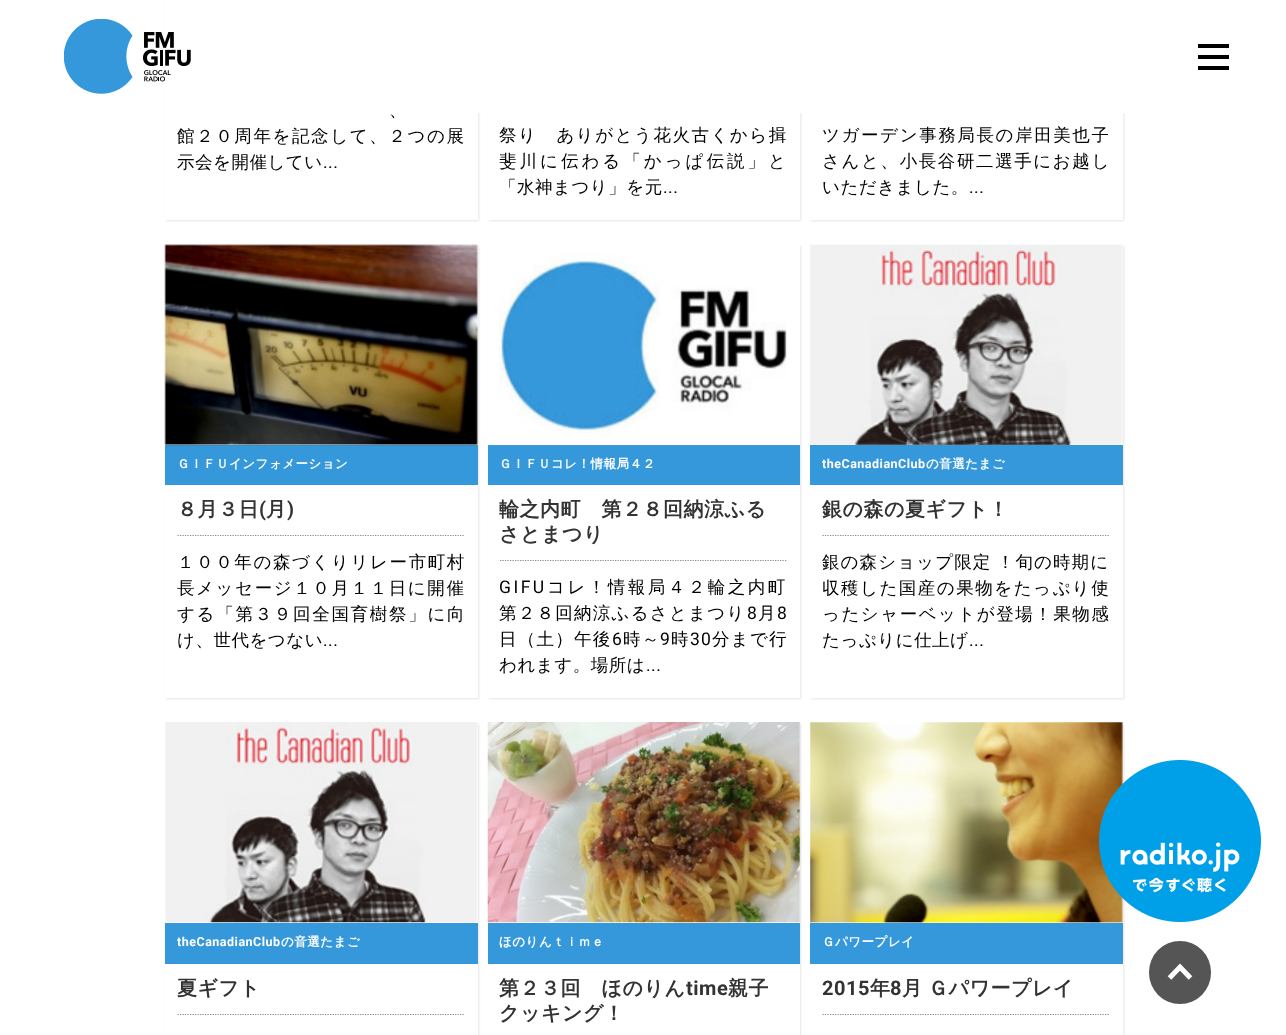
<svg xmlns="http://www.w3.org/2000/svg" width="1286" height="1035">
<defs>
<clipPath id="clip1"><path d="M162 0h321v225h-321zm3-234h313v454h-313z" clip-rule="evenodd"/></clipPath>
<clipPath id="clip2"><path d="M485 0h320v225h-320zm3-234h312v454h-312z" clip-rule="evenodd"/></clipPath>
<clipPath id="clip3"><path d="M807 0h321v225h-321zm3-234h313v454h-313z" clip-rule="evenodd"/></clipPath>
<clipPath id="clip4"><path d="M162 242h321v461h-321zm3 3h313v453h-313z" clip-rule="evenodd"/></clipPath>
<clipPath id="clip5"><path d="M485 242h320v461h-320zm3 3h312v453h-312z" clip-rule="evenodd"/></clipPath>
<clipPath id="clip6"><path d="M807 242h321v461h-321zm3 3h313v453h-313z" clip-rule="evenodd"/></clipPath>
<clipPath id="clip7"><path d="M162 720h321v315h-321zm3 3h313v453h-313z" clip-rule="evenodd"/></clipPath>
<clipPath id="clip8"><rect x="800" y="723" width="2" height="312"/></clipPath>
<clipPath id="clip9"><path d="M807 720h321v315h-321zm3 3h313v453h-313z" clip-rule="evenodd"/></clipPath>
</defs>
<rect width="100%" height="100%" fill="#fff"/>
<g clip-path="url(#clip1)">
<rect x="166" y="-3" width="313" height="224" fill="#0000001a" filter="blur(1px)"/>
</g>
<g clip-path="url(#clip2)">
<rect x="489" y="-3" width="312" height="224" fill="#0000001a" filter="blur(1px)"/>
</g>
<g clip-path="url(#clip3)">
<rect x="811" y="-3" width="313" height="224" fill="#0000001a" filter="blur(1px)"/>
</g>
<rect x="477" width="648" height="113" fill="#fff"/>
<image x="64" y="19" width="127" height="75" href="media/1.png"/>
<rect x="1198" y="44" width="31" height="4" fill="#000"/>
<rect x="1198" y="55" width="31" height="4" fill="#000"/>
<rect x="1198" y="66" width="31" height="4" fill="#000"/>
<text x="389" y="116" style="font-family:WenQuanYi Zen Hei;font-size:17.5px;font-weight:500;letter-spacing:1.7px;fill:#000">、</text>
<text x="177" y="142" style="font-family:WenQuanYi Zen Hei;font-size:17.5px;font-weight:500;letter-spacing:1.6px;fill:#000">館２０周年を記念して、２つの展</text>
<text x="177" y="168" style="font-family:WenQuanYi Zen Hei;font-size:17.5px;font-weight:500;letter-spacing:0.5px;fill:#000">示会を開催してい</text>
<text x="323" y="168" style="font-family:Roboto;font-size:17.5px;letter-spacing:0.5px;fill:#000">...</text>
<text x="499" y="141" style="font-family:WenQuanYi Zen Hei;font-size:17.5px;font-weight:500;letter-spacing:1.5px;fill:#000">祭り　ありがとう花火古くから揖</text>
<text x="499" y="167" style="font-family:WenQuanYi Zen Hei;font-size:17.5px;font-weight:500;letter-spacing:3px;fill:#000">斐川に伝わる「かっぱ伝説」と</text>
<text x="499" y="193" style="font-family:WenQuanYi Zen Hei;font-size:17.5px;font-weight:500;letter-spacing:0.5px;fill:#000">「水神まつり」を元</text>
<text x="663" y="193" style="font-family:Roboto;font-size:17.5px;letter-spacing:0.5px;fill:#000">...</text>
<text x="822" y="141" style="font-family:WenQuanYi Zen Hei;font-size:17.5px;font-weight:500;letter-spacing:1.6px;fill:#000">ツガーデン事務局長の岸田美也子</text>
<text x="822" y="167" style="font-family:WenQuanYi Zen Hei;font-size:17.5px;font-weight:500;letter-spacing:1.6px;fill:#000">さんと、小長谷研二選手にお越し</text>
<text x="822" y="193" style="font-family:WenQuanYi Zen Hei;font-size:17.5px;font-weight:500;letter-spacing:0.5px;fill:#000">いただきました。</text>
<text x="969" y="193" style="font-family:Roboto;font-size:17.5px;letter-spacing:0.5px;fill:#000">...</text>
<g clip-path="url(#clip4)">
<rect x="166" y="246" width="313" height="453" fill="#0000001a" filter="blur(1px)"/>
</g>
<rect x="165" y="445" width="313" height="40" fill="#3498db"/>
<image x="164" y="244" width="314" height="202" href="media/2.png"/>
<text x="177" y="468" style="font-family:WenQuanYi Zen Hei;font-size:12.5px;font-weight:bold;letter-spacing:0.5px;fill:#fff">ＧＩＦＵインフォメーション</text>
<path d="M177.5 535.5h287.5" fill="none" stroke="#888" stroke-width="1.2" stroke-dasharray="1.25 1.25"/>
<text x="177" y="516" style="font-family:WenQuanYi Zen Hei;font-size:20px;font-weight:bold;letter-spacing:0.5px;fill:#333">８月３日</text>
<text x="259" y="516" style="font-family:Roboto;font-size:20px;font-weight:bold;letter-spacing:0.5px;fill:#333">(</text>
<text x="266" y="516" style="font-family:WenQuanYi Zen Hei;font-size:20px;font-weight:bold;letter-spacing:0.5px;fill:#333">月</text>
<text x="287" y="516" style="font-family:Roboto;font-size:20px;font-weight:bold;letter-spacing:0.5px;fill:#333">)</text>
<text x="177" y="568" style="font-family:WenQuanYi Zen Hei;font-size:17.5px;font-weight:500;letter-spacing:1.6px;fill:#000">１００年の森づくりリレー市町村</text>
<text x="177" y="594" style="font-family:WenQuanYi Zen Hei;font-size:17.5px;font-weight:500;letter-spacing:1.6px;fill:#000">長メッセージ１０月１１日に開催</text>
<text x="177" y="620" style="font-family:WenQuanYi Zen Hei;font-size:17.5px;font-weight:500;letter-spacing:1.7px;fill:#000">する「第３９回全国育樹祭」に向</text>
<text x="177" y="646" style="font-family:WenQuanYi Zen Hei;font-size:17.5px;font-weight:500;letter-spacing:0.5px;fill:#000">け、世代をつない</text>
<text x="323" y="646" style="font-family:Roboto;font-size:17.5px;letter-spacing:0.5px;fill:#000">...</text>
<g clip-path="url(#clip5)">
<rect x="489" y="246" width="312" height="453" fill="#0000001a" filter="blur(1px)"/>
</g>
<rect x="488" y="445" width="312" height="40" fill="#3498db"/>
<image x="488" y="253" width="312" height="193" href="media/3.png"/>
<text x="499" y="468" style="font-family:WenQuanYi Zen Hei;font-size:12.5px;font-weight:bold;letter-spacing:0.5px;fill:#fff">ＧＩＦＵコレ！情報局４２</text>
<path d="M500 560.5h287.5" fill="none" stroke="#888" stroke-width="1.2" stroke-dasharray="1.25 1.25"/>
<text x="499" y="516" style="font-family:WenQuanYi Zen Hei;font-size:20px;font-weight:bold;letter-spacing:0.5px;fill:#333">輪之内町　第２８回納涼ふる</text>
<text x="499" y="541" style="font-family:WenQuanYi Zen Hei;font-size:20px;font-weight:bold;letter-spacing:0.5px;fill:#333">さとまつり</text>
<text x="499" y="593" style="font-family:Roboto;font-size:17.5px;letter-spacing:2.5px;fill:#000">GIFU</text>
<text x="547" y="593" style="font-family:WenQuanYi Zen Hei;font-size:17.5px;font-weight:500;letter-spacing:2.5px;fill:#000">コレ！情報局４２輪之内町</text>
<text x="499" y="619" style="font-family:WenQuanYi Zen Hei;font-size:17.5px;font-weight:500;letter-spacing:1.25px;fill:#000">第２８回納涼ふるさとまつり</text>
<text x="747" y="619" style="font-family:Roboto;font-size:17.5px;letter-spacing:1.25px;fill:#000">8</text>
<text x="758" y="619" style="font-family:WenQuanYi Zen Hei;font-size:17.5px;font-weight:500;letter-spacing:1.25px;fill:#000">月</text>
<text x="777" y="619" style="font-family:Roboto;font-size:17.5px;letter-spacing:1.25px;fill:#000">8</text>
<text x="499" y="645" style="font-family:WenQuanYi Zen Hei;font-size:17.5px;font-weight:500;letter-spacing:1.25px;fill:#000">日（土）午後</text>
<text x="612" y="645" style="font-family:Roboto;font-size:17.5px;letter-spacing:1.25px;fill:#000">6</text>
<text x="623" y="645" style="font-family:WenQuanYi Zen Hei;font-size:17.5px;font-weight:500;letter-spacing:1.25px;fill:#000">時～</text>
<text x="660" y="645" style="font-family:Roboto;font-size:17.5px;letter-spacing:1.25px;fill:#000">9</text>
<text x="671" y="645" style="font-family:WenQuanYi Zen Hei;font-size:17.5px;font-weight:500;letter-spacing:1.25px;fill:#000">時</text>
<text x="690" y="645" style="font-family:Roboto;font-size:17.5px;letter-spacing:1.25px;fill:#000">30</text>
<text x="712" y="645" style="font-family:WenQuanYi Zen Hei;font-size:17.5px;font-weight:500;letter-spacing:1.25px;fill:#000">分まで行</text>
<text x="499" y="671" style="font-family:WenQuanYi Zen Hei;font-size:17.5px;font-weight:500;letter-spacing:0.5px;fill:#000">われます。場所は</text>
<text x="646" y="671" style="font-family:Roboto;font-size:17.5px;letter-spacing:0.5px;fill:#000">...</text>
<g clip-path="url(#clip6)">
<rect x="811" y="246" width="313" height="453" fill="#0000001a" filter="blur(1px)"/>
</g>
<image x="810" y="244" width="313" height="201" href="media/4.png"/>
<rect x="810" y="445" width="313" height="40" fill="#3498db"/>
<text x="822" y="468" style="font-family:Roboto;font-size:12.5px;font-weight:bold;letter-spacing:0.5px;fill:#fff">theCanadianClub</text>
<text x="926" y="468" style="font-family:WenQuanYi Zen Hei;font-size:12.5px;font-weight:bold;letter-spacing:0.5px;fill:#fff">の音選たまご</text>
<path d="M822.5 535.5h287.5" fill="none" stroke="#888" stroke-width="1.2" stroke-dasharray="1.25 1.25"/>
<text x="822" y="516" style="font-family:WenQuanYi Zen Hei;font-size:20px;font-weight:bold;letter-spacing:0.5px;fill:#333">銀の森の夏ギフト！</text>
<text x="822" y="568" word-spacing="-1" style="font-family:WenQuanYi Zen Hei;font-size:17.5px;font-weight:500;letter-spacing:1.1px;fill:#000">銀の森ショップ限定 ！旬の時期に</text>
<text x="822" y="594" style="font-family:WenQuanYi Zen Hei;font-size:17.5px;font-weight:500;letter-spacing:1.5px;fill:#000">収穫した国産の果物をたっぷり使</text>
<text x="822" y="620" style="font-family:WenQuanYi Zen Hei;font-size:17.5px;font-weight:500;letter-spacing:1.5px;fill:#000">ったシャーベットが登場！果物感</text>
<text x="822" y="646" style="font-family:WenQuanYi Zen Hei;font-size:17.5px;font-weight:500;letter-spacing:0.5px;fill:#000">たっぷりに仕上げ</text>
<text x="969" y="646" style="font-family:Roboto;font-size:17.5px;letter-spacing:0.5px;fill:#000">...</text>
<g clip-path="url(#clip7)">
<rect x="166" y="724" width="313" height="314" fill="#0000001a" filter="blur(1px)"/>
</g>
<image x="165" y="722" width="313" height="201" href="media/5.png"/>
<rect x="165" y="923" width="313" height="41" fill="#3498db"/>
<text x="177" y="946" style="font-family:Roboto;font-size:12.5px;font-weight:bold;letter-spacing:0.5px;fill:#fff">theCanadianClub</text>
<text x="281" y="946" style="font-family:WenQuanYi Zen Hei;font-size:12.5px;font-weight:bold;letter-spacing:0.5px;fill:#fff">の音選たまご</text>
<path d="M177.5 1014.5h287.5" fill="none" stroke="#888" stroke-width="1.2" stroke-dasharray="1.25 1.25"/>
<text x="177" y="995" style="font-family:WenQuanYi Zen Hei;font-size:20px;font-weight:bold;letter-spacing:0.5px;fill:#333">夏ギフト</text>
<g clip-path="url(#clip8)">
<rect x="489" y="724" width="312" height="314" fill="#0000001a" filter="blur(1px)"/>
</g>
<image x="487" y="722" width="314" height="201" href="media/6.png"/>
<rect x="488" y="923" width="312" height="41" fill="#3498db"/>
<text x="499" y="946" style="font-family:WenQuanYi Zen Hei;font-size:12.5px;font-weight:bold;letter-spacing:0.5px;fill:#fff">ほのりんｔｉｍｅ</text>
<text x="499" y="995" style="font-family:WenQuanYi Zen Hei;font-size:20px;font-weight:bold;letter-spacing:0.5px;fill:#333">第２３回　ほのりん</text>
<text x="686" y="995" style="font-family:Roboto;font-size:20px;font-weight:bold;letter-spacing:0.5px;fill:#333">time</text>
<text x="728" y="995" style="font-family:WenQuanYi Zen Hei;font-size:20px;font-weight:bold;letter-spacing:0.5px;fill:#333">親子</text>
<text x="499" y="1020" style="font-family:WenQuanYi Zen Hei;font-size:20px;font-weight:bold;letter-spacing:0.5px;fill:#333">クッキング！</text>
<g clip-path="url(#clip9)">
<rect x="811" y="724" width="313" height="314" fill="#0000001a" filter="blur(1px)"/>
</g>
<image x="810" y="722" width="313" height="201" href="media/7.png"/>
<rect x="810" y="923" width="313" height="41" fill="#3498db"/>
<text x="822" y="946" style="font-family:WenQuanYi Zen Hei;font-size:12.5px;font-weight:bold;letter-spacing:0.5px;fill:#fff">Ｇパワープレイ</text>
<path d="M822.5 1014.5h287.5" fill="none" stroke="#888" stroke-width="1.2" stroke-dasharray="1.25 1.25"/>
<text x="822" y="995" style="font-family:Roboto;font-size:20px;font-weight:bold;letter-spacing:0.5px;fill:#333">2015</text>
<text x="870" y="995" style="font-family:WenQuanYi Zen Hei;font-size:20px;font-weight:bold;letter-spacing:0.5px;fill:#333">年</text>
<text x="890" y="995" style="font-family:Roboto;font-size:20px;font-weight:bold;letter-spacing:0.5px;fill:#333">8</text>
<text x="902" y="995" word-spacing="-1" style="font-family:WenQuanYi Zen Hei;font-size:20px;font-weight:bold;letter-spacing:0.5px;fill:#333">月 Ｇパワープレイ</text>
<image x="1099" y="760" width="162" height="162" href="media/8.png"/>
<rect x="1149" y="941" width="62" height="63" rx="31" fill="#555"/>
<path d="M1169.5 978l10.5-11l10.5 11" fill="none" stroke="#fff" stroke-width="5"/>
</svg>
